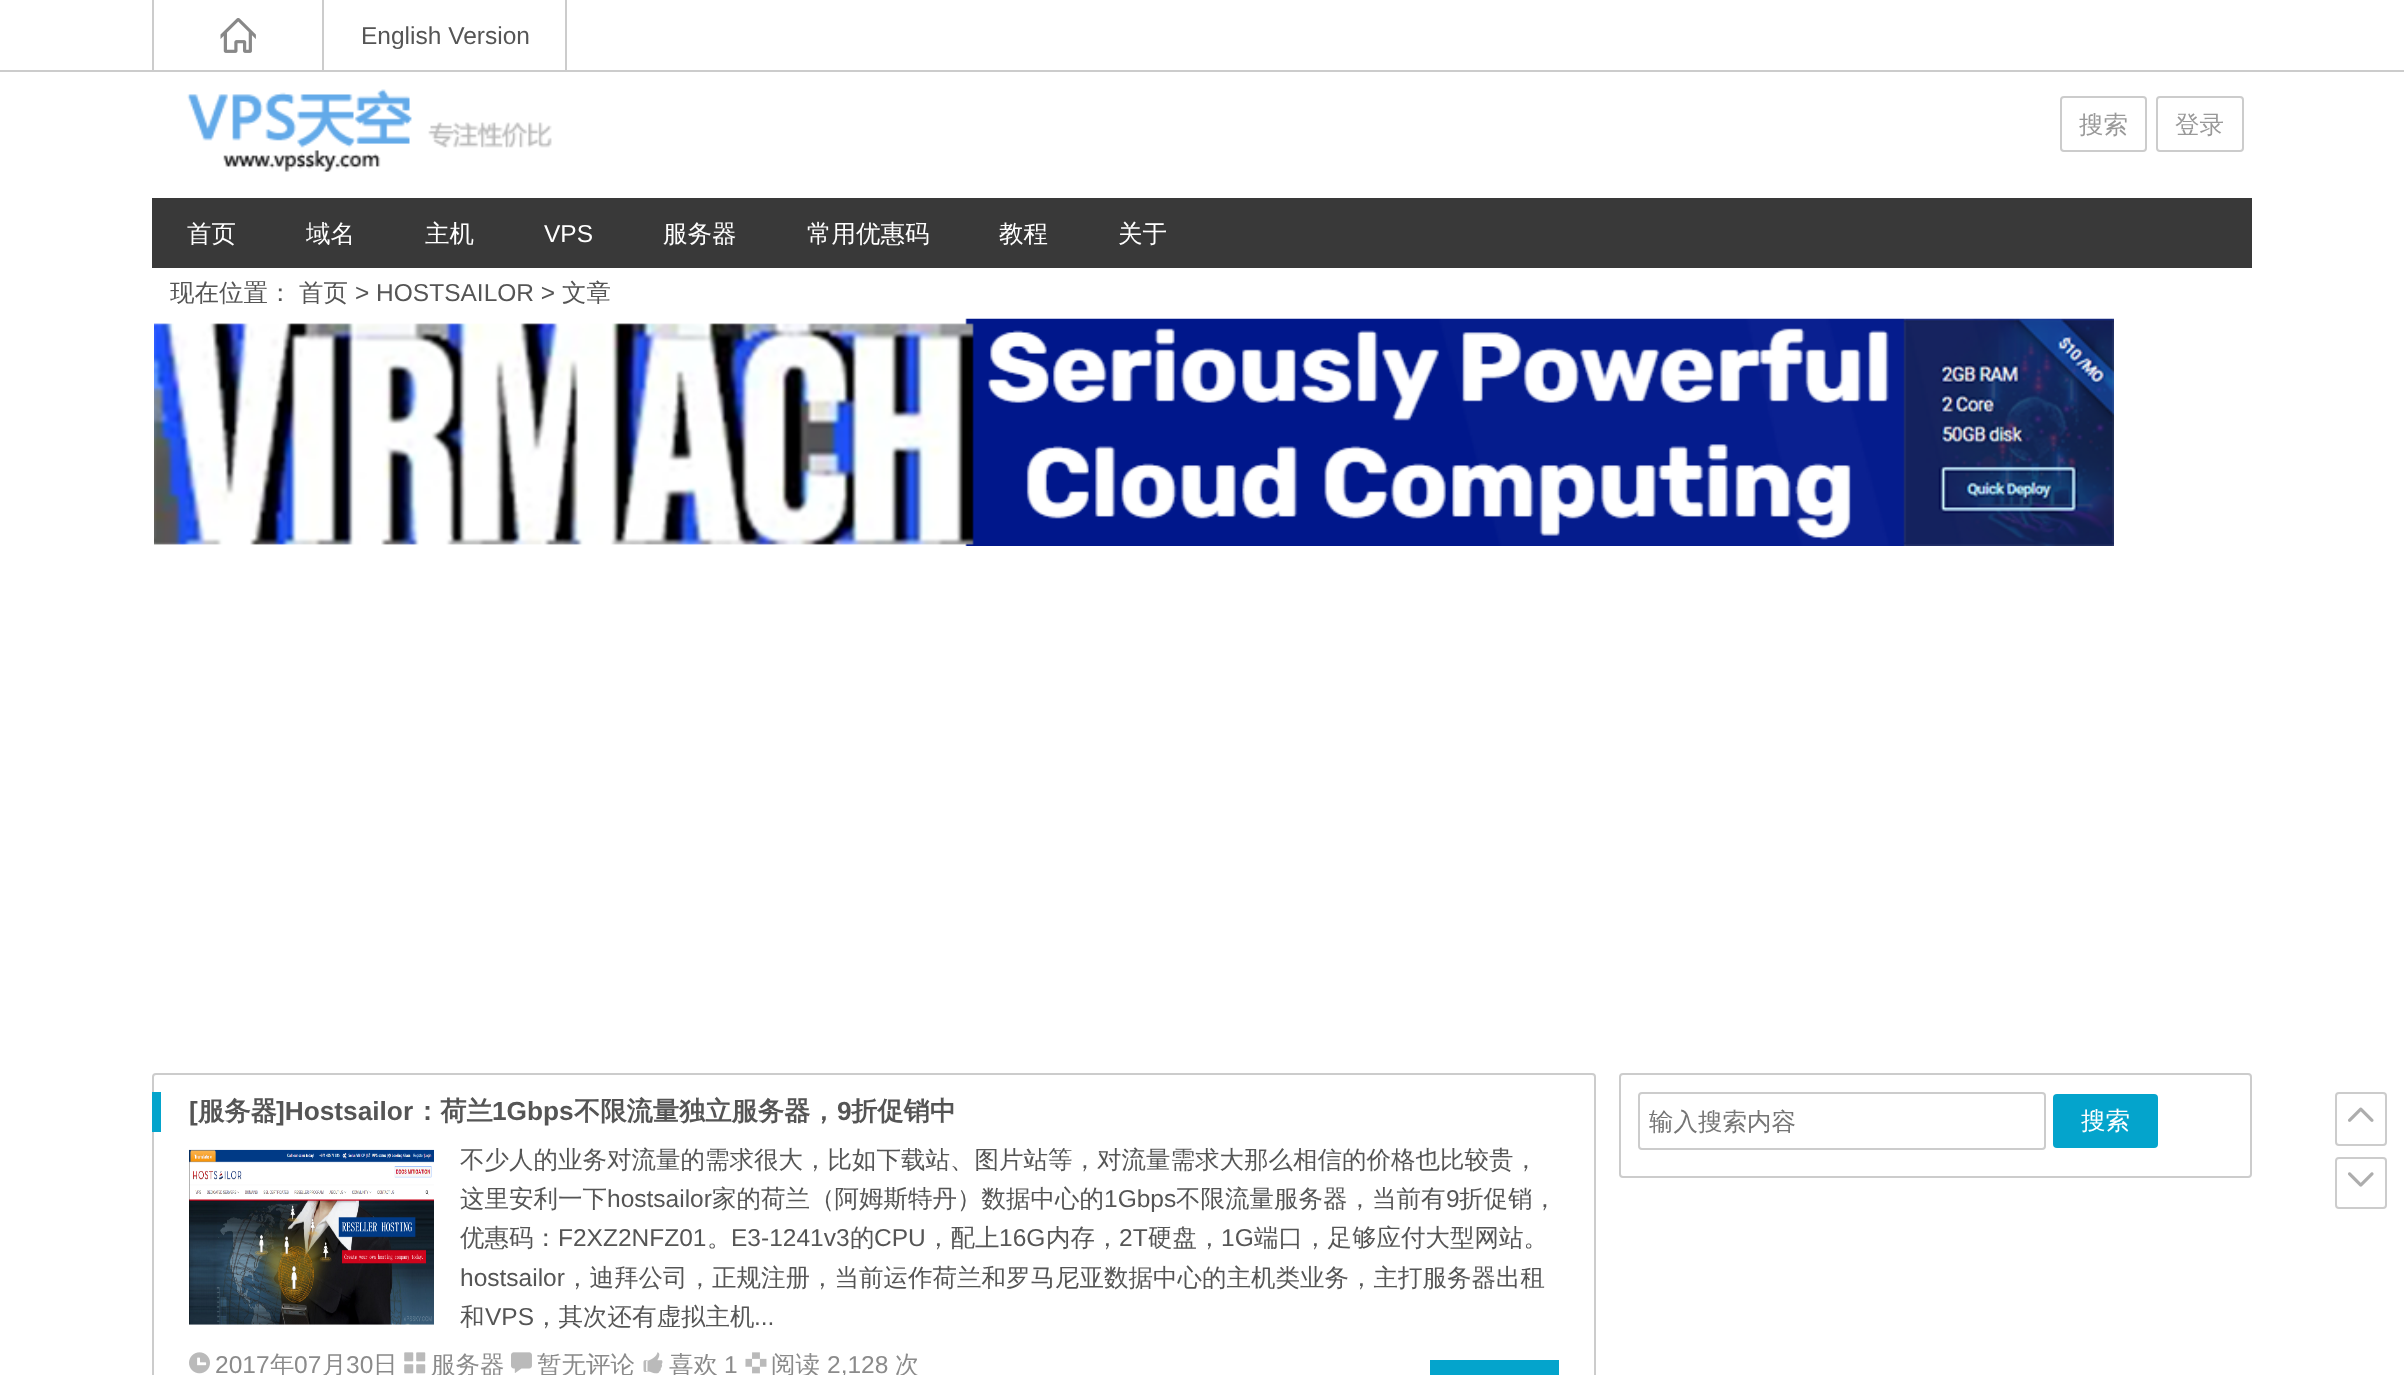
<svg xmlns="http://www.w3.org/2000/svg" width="2404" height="1375">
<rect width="100%" height="100%" fill="#fff"/>
<rect y="70" width="2404" height="2" fill="#ccc"/>
<rect x="322" width="2" height="70" fill="#ccc"/>
<rect x="152" width="2" height="70" fill="#ccc"/>
<image x="220" y="18" width="36" height="35" href="media/1.png"/>
<rect x="565" width="2" height="70" fill="#ccc"/>
<text x="361" y="44" style="font-family:Liberation Sans;font-size:24.5px;fill:#555">English Version</text>
<image x="187" y="89" width="365" height="83" href="media/2.png"/>
<rect x="2061" y="97" width="85" height="54" rx="3" fill="none" stroke="#ccc" stroke-width="2"/>
<text x="2079" y="133" style="font-family:WenQuanYi Zen Hei;font-size:24.5px;font-weight:500;fill:#999">搜索</text>
<rect x="2157" y="97" width="86" height="54" rx="3" fill="none" stroke="#ccc" stroke-width="2"/>
<text x="2175" y="133" style="font-family:WenQuanYi Zen Hei;font-size:24.5px;font-weight:500;fill:#999">登录</text>
<rect x="152" y="198" width="2100" height="70" fill="#393939"/>
<text x="187" y="242" style="font-family:WenQuanYi Zen Hei;font-size:24.5px;font-weight:500;fill:#fff">首页</text>
<text x="306" y="242" style="font-family:WenQuanYi Zen Hei;font-size:24.5px;font-weight:500;fill:#fff">域名</text>
<text x="425" y="242" style="font-family:WenQuanYi Zen Hei;font-size:24.5px;font-weight:500;fill:#fff">主机</text>
<text x="544" y="242" style="font-family:Liberation Sans;font-size:24.5px;fill:#fff">VPS</text>
<text x="663" y="242" style="font-family:WenQuanYi Zen Hei;font-size:24.5px;font-weight:500;fill:#fff">服务器</text>
<text x="807" y="242" style="font-family:WenQuanYi Zen Hei;font-size:24.5px;font-weight:500;fill:#fff">常用优惠码</text>
<text x="999" y="242" style="font-family:WenQuanYi Zen Hei;font-size:24.5px;font-weight:500;fill:#fff">教程</text>
<text x="1118" y="242" style="font-family:WenQuanYi Zen Hei;font-size:24.5px;font-weight:500;fill:#fff">关于</text>
<text x="170" y="301" style="font-family:WenQuanYi Zen Hei;font-size:24.5px;font-weight:500;fill:#555">现在位置：</text>
<text x="299" y="301" style="font-family:WenQuanYi Zen Hei;font-size:24.5px;font-weight:500;fill:#555">首页</text>
<text x="355" y="301" style="font-family:Liberation Sans;font-size:24.5px;fill:#555">&gt; HOSTSAILOR &gt;</text>
<text x="562" y="301" style="font-family:WenQuanYi Zen Hei;font-size:24.5px;font-weight:500;fill:#555">文章</text>
<image x="154" y="318" width="1960" height="228" href="media/3.png"/>
<rect x="153" y="1074" width="1442" height="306" rx="3" fill="none" stroke="#ccc" stroke-width="2"/>
<rect x="152" y="1092" width="9" height="40" fill="#04a4cc"/>
<text x="189" y="1120" style="font-family:Liberation Sans;font-size:26.25px;font-weight:bold;fill:#555">[</text>
<text x="198" y="1120" style="font-family:WenQuanYi Zen Hei;font-size:26.25px;font-weight:bold;fill:#555">服务器</text>
<text x="276" y="1120" style="font-family:Liberation Sans;font-size:26.25px;font-weight:bold;fill:#555">]Hostsailor</text>
<text x="414" y="1120" style="font-family:WenQuanYi Zen Hei;font-size:26.25px;font-weight:bold;fill:#555">：荷兰</text>
<text x="492" y="1120" style="font-family:Liberation Sans;font-size:26.25px;font-weight:bold;fill:#555">1Gbps</text>
<text x="574" y="1120" style="font-family:WenQuanYi Zen Hei;font-size:26.25px;font-weight:bold;fill:#555">不限流量独立服务器，</text>
<text x="837" y="1120" style="font-family:Liberation Sans;font-size:26.25px;font-weight:bold;fill:#555">9</text>
<text x="851" y="1120" style="font-family:WenQuanYi Zen Hei;font-size:26.25px;font-weight:bold;fill:#555">折促销中</text>
<image x="189" y="1149" width="245" height="176" href="media/4.png"/>
<text x="460" y="1168" style="font-family:WenQuanYi Zen Hei;font-size:24.5px;font-weight:500;fill:#555">不少人的业务对流量的需求很大，比如下载站、图片站等，对流量需求大那么相信的价格也比较贵，</text>
<text x="460" y="1207" style="font-family:WenQuanYi Zen Hei;font-size:24.5px;font-weight:500;fill:#555">这里安利一下</text>
<text x="607" y="1207" style="font-family:Liberation Sans;font-size:24.5px;fill:#555">hostsailor</text>
<text x="712" y="1207" style="font-family:WenQuanYi Zen Hei;font-size:24.5px;font-weight:500;fill:#555">家的荷兰（阿姆斯特丹）数据中心的</text>
<text x="1104" y="1207" style="font-family:Liberation Sans;font-size:24.5px;fill:#555">1Gbps</text>
<text x="1176" y="1207" style="font-family:WenQuanYi Zen Hei;font-size:24.5px;font-weight:500;fill:#555">不限流量服务器，当前有</text>
<text x="1446" y="1207" style="font-family:Liberation Sans;font-size:24.5px;fill:#555">9</text>
<text x="1459" y="1207" style="font-family:WenQuanYi Zen Hei;font-size:24.5px;font-weight:500;fill:#555">折促销，</text>
<text x="460" y="1246" style="font-family:WenQuanYi Zen Hei;font-size:24.5px;font-weight:500;fill:#555">优惠码：</text>
<text x="558" y="1246" style="font-family:Liberation Sans;font-size:24.5px;fill:#555">F2XZ2NFZ01</text>
<text x="707" y="1246" style="font-family:WenQuanYi Zen Hei;font-size:24.5px;font-weight:500;fill:#555">。</text>
<text x="731" y="1246" style="font-family:Liberation Sans;font-size:24.5px;fill:#555">E3-1241v3</text>
<text x="850" y="1246" style="font-family:WenQuanYi Zen Hei;font-size:24.5px;font-weight:500;fill:#555">的</text>
<text x="874" y="1246" style="font-family:Liberation Sans;font-size:24.5px;fill:#555">CPU</text>
<text x="926" y="1246" style="font-family:WenQuanYi Zen Hei;font-size:24.5px;font-weight:500;fill:#555">，配上</text>
<text x="999" y="1246" style="font-family:Liberation Sans;font-size:24.5px;fill:#555">16G</text>
<text x="1046" y="1246" style="font-family:WenQuanYi Zen Hei;font-size:24.5px;font-weight:500;fill:#555">内存，</text>
<text x="1119" y="1246" style="font-family:Liberation Sans;font-size:24.5px;fill:#555">2T</text>
<text x="1148" y="1246" style="font-family:WenQuanYi Zen Hei;font-size:24.5px;font-weight:500;fill:#555">硬盘，</text>
<text x="1221" y="1246" style="font-family:Liberation Sans;font-size:24.5px;fill:#555">1G</text>
<text x="1254" y="1246" style="font-family:WenQuanYi Zen Hei;font-size:24.5px;font-weight:500;fill:#555">端口，足够应付大型网站。</text>
<text x="460" y="1286" style="font-family:Liberation Sans;font-size:24.5px;fill:#555">hostsailor</text>
<text x="565" y="1286" style="font-family:WenQuanYi Zen Hei;font-size:24.5px;font-weight:500;fill:#555">，迪拜公司，正规注册，当前运作荷兰和罗马尼亚数据中心的主机类业务，主打服务器出租</text>
<text x="460" y="1325" style="font-family:WenQuanYi Zen Hei;font-size:24.5px;font-weight:500;fill:#555">和</text>
<text x="485" y="1325" style="font-family:Liberation Sans;font-size:24.5px;fill:#555">VPS</text>
<text x="534" y="1325" style="font-family:WenQuanYi Zen Hei;font-size:24.5px;font-weight:500;fill:#555">，其次还有虚拟主机</text>
<text x="754" y="1325" style="font-family:Liberation Sans;font-size:24.5px;fill:#555">...</text>
<image x="189" y="1352" width="21" height="22" href="media/5.png"/>
<text x="215" y="1373" style="font-family:Liberation Sans;font-size:24.5px;fill:#8b8b8b">2017</text>
<text x="270" y="1373" style="font-family:WenQuanYi Zen Hei;font-size:24.5px;font-weight:500;fill:#8b8b8b">年</text>
<text x="294" y="1373" style="font-family:Liberation Sans;font-size:24.5px;fill:#8b8b8b">07</text>
<text x="322" y="1373" style="font-family:WenQuanYi Zen Hei;font-size:24.5px;font-weight:500;fill:#8b8b8b">月</text>
<text x="346" y="1373" style="font-family:Liberation Sans;font-size:24.5px;fill:#8b8b8b">30</text>
<text x="373" y="1373" style="font-family:WenQuanYi Zen Hei;font-size:24.5px;font-weight:500;fill:#8b8b8b">日</text>
<image x="404" y="1352" width="22" height="22" href="media/6.png"/>
<text x="431" y="1373" style="font-family:WenQuanYi Zen Hei;font-size:24.5px;font-weight:500;fill:#8b8b8b">服务器</text>
<image x="511" y="1352" width="21" height="21" href="media/7.png"/>
<text x="537" y="1373" style="font-family:WenQuanYi Zen Hei;font-size:24.5px;font-weight:500;fill:#8b8b8b">暂无评论</text>
<image x="643" y="1352" width="20" height="22" href="media/8.png"/>
<text x="669" y="1373" style="font-family:WenQuanYi Zen Hei;font-size:24.5px;font-weight:500;fill:#8b8b8b">喜欢</text>
<text x="724" y="1373" style="font-family:Liberation Sans;font-size:24.5px;fill:#8b8b8b">1</text>
<image x="745" y="1352" width="22" height="22" href="media/9.png"/>
<text x="771" y="1373" style="font-family:WenQuanYi Zen Hei;font-size:24.5px;font-weight:500;fill:#8b8b8b">阅读</text>
<text x="827" y="1373" style="font-family:Liberation Sans;font-size:24.5px;fill:#8b8b8b">2,128</text>
<text x="895" y="1373" style="font-family:WenQuanYi Zen Hei;font-size:24.5px;font-weight:500;fill:#8b8b8b">次</text>
<rect x="1430" y="1360" width="129" height="15" fill="#04a4cc"/>
<rect x="1620" y="1074" width="631" height="103" rx="3" fill="none" stroke="#ccc" stroke-width="2"/>
<rect x="1639" y="1093" width="406" height="56" rx="3" fill="none" stroke="#ccc" stroke-width="2"/>
<text x="1649" y="1130" style="font-family:WenQuanYi Zen Hei;font-size:24.5px;font-weight:500;fill:#757575">输入搜索内容</text>
<rect x="2053" y="1094" width="105" height="54" rx="4" fill="#04a4cc"/>
<text x="2081" y="1129" style="font-family:WenQuanYi Zen Hei;font-size:24.5px;font-weight:500;fill:#fff">搜索</text>
<rect x="2336" y="1093" width="50" height="52" rx="3" fill="none" stroke="#ccc" stroke-width="2"/>
<image x="2348" y="1107" width="26" height="15" href="media/10.png"/>
<rect x="2336" y="1158" width="50" height="50" rx="3" fill="none" stroke="#ccc" stroke-width="2"/>
<image x="2348" y="1172" width="26" height="15" href="media/11.png"/>
</svg>
